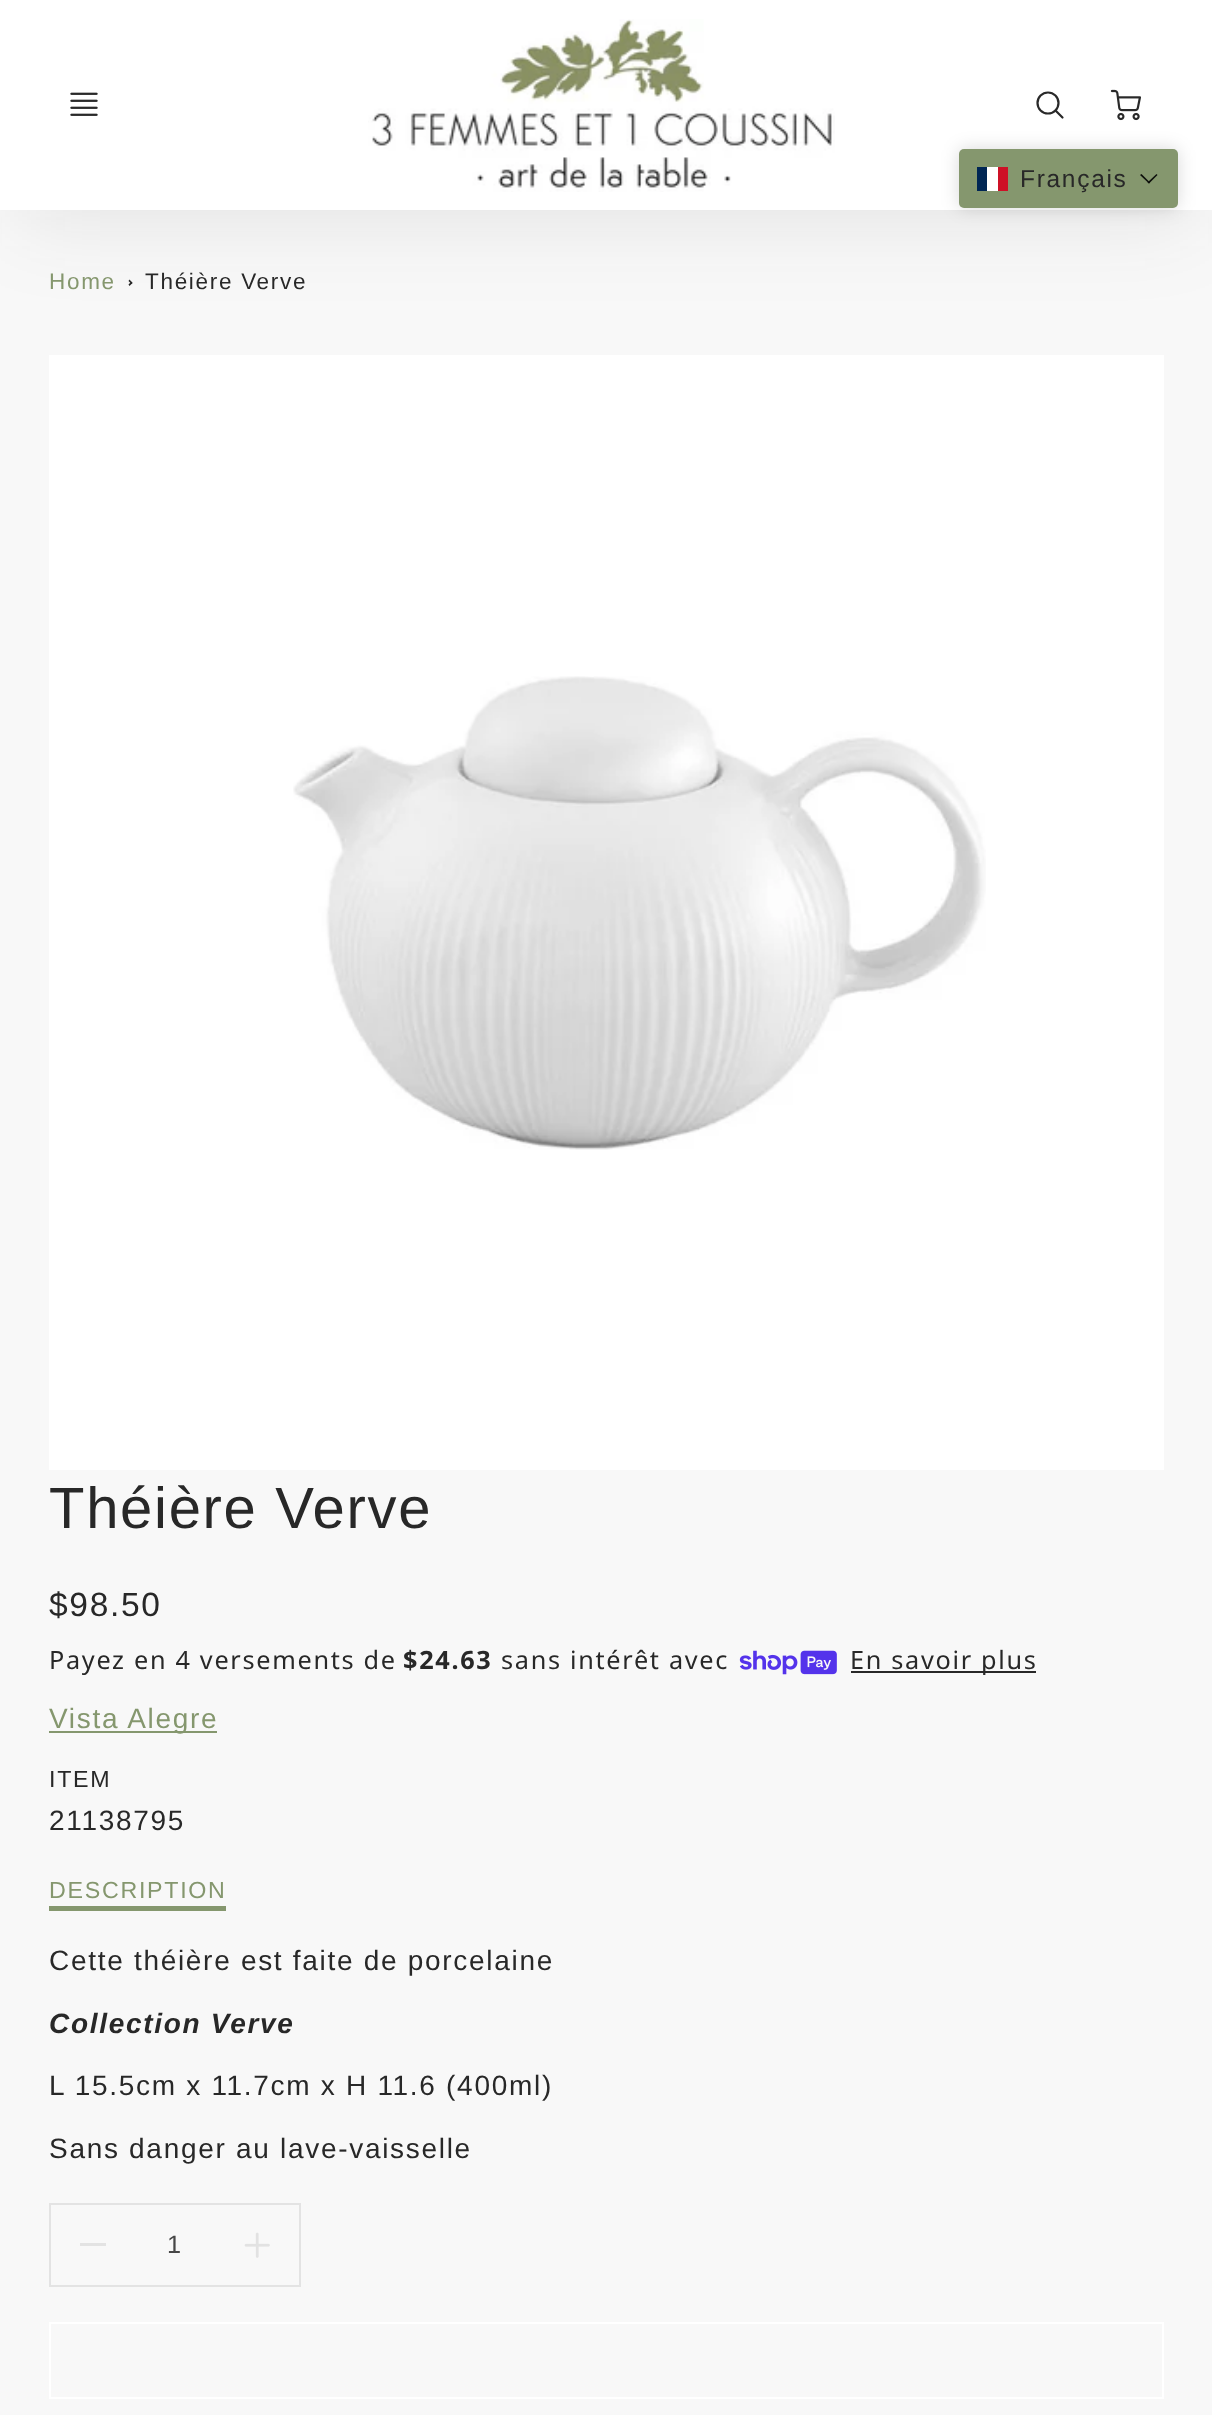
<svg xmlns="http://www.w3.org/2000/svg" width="1212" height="2415">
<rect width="100%" height="100%" fill="#f8f8f8"/>
<path d="M129.5 279.5l3 3.5l-1 1l-3-3z" fill="#282828"/>
<path d="M131.5 281.5l1 1.5l-3 3l-1-1.5z" fill="#282828"/>
<rect x="16" y="42" width="1178" height="175" fill="#2929291a" filter="blur(44px)"/>
<rect width="1212" height="210" fill="#fff"/>
<image x="70" y="92" width="28" height="24" href="media/1.png"/>
<image x="368" y="19" width="467" height="173" href="media/2.png"/>
<circle cx="1048" cy="103" r="10.5" fill="none" stroke="#292929" stroke-width="2.2"/>
<path d="M1062.5 117.5l-7-7" fill="none" stroke="#292929" stroke-width="2.2" stroke-linecap="round" stroke-linejoin="round"/>
<image x="1110" y="89" width="31" height="32" href="media/3.png"/>
<rect x="959" y="149" width="219" height="59" rx="5" fill="#00000026" filter="blur(9px)"/>
<rect x="959" y="149" width="219" height="59" rx="5" fill="#85976e"/>
<rect x="987" y="167" width="11" height="24" fill="#fff"/>
<rect x="977" y="167" width="10" height="24" fill="#002654"/>
<rect x="998" y="167" width="10" height="24" fill="#ce1126"/>
<text x="1020" y="187" style="font-family:Liberation Sans;font-size:24.5px;letter-spacing:1.7px;fill:#282828">Français</text>
<path d="M1156.5 174l1 1l-8.5 8.5l-1.5-1z" fill="#0d0f0b"/>
<path d="M1141.5 174l8.5 8.5l-1 1l-9-8.5z" fill="#0d0f0b"/>
<text x="49" y="289" style="font-family:Liberation Sans;font-size:22.5px;letter-spacing:1.7px;fill:#85976e">Home</text>
<text x="145" y="289" style="font-family:Liberation Sans;font-size:22.5px;letter-spacing:1.7px;fill:#282828">Théière Verve</text>
<rect x="49" y="355" width="1115" height="1115" fill="#fff"/>
<image x="293" y="676" width="693" height="474" href="media/4.png"/>
<text x="49" y="1528" style="font-family:Liberation Sans;font-size:58px;letter-spacing:1.7px;fill:#282828">Théière Verve</text>
<text x="49" y="1616" style="font-family:Liberation Sans;font-size:33.5px;letter-spacing:1.7px;fill:#282828">$98.50</text>
<text x="49" y="1669" style="font-family:Noto Sans;font-size:25.25px;letter-spacing:1.7px;fill:#282828">Payez en 4 versements de</text>
<text x="403" y="1669" style="font-family:Noto Sans;font-size:25.25px;font-weight:bold;letter-spacing:1.7px;fill:#282828">$24.63</text>
<text x="501" y="1669" style="font-family:Noto Sans;font-size:25.25px;letter-spacing:1.7px;fill:#282828">sans intérêt avec</text>
<image x="739" y="1650" width="98" height="25" href="media/5.png"/>
<rect x="851" y="1671" width="185" height="2" fill="#282828"/>
<text x="850" y="1669" style="font-family:Noto Sans;font-size:25.25px;letter-spacing:1.7px;fill:#282828">En savoir plus</text>
<rect x="49" y="1731" width="168" height="2" fill="#85976e"/>
<text x="49" y="1728" style="font-family:Liberation Sans;font-size:28px;letter-spacing:1.7px;fill:#85976e">Vista Alegre</text>
<text x="49" y="1787" style="font-family:Liberation Sans;font-size:23.25px;letter-spacing:1.7px;fill:#282828">ITEM</text>
<text x="49" y="1830" style="font-family:Liberation Sans;font-size:28px;letter-spacing:1.7px;fill:#282828">21138795</text>
<rect x="49" y="1906" width="177" height="5" fill="#85976e"/>
<text x="49" y="1898" style="font-family:Liberation Sans;font-size:23.25px;letter-spacing:1.7px;fill:#85976e">DESCRIPTION</text>
<text x="49" y="1970" style="font-family:Liberation Sans;font-size:28px;letter-spacing:1.7px;fill:#282828">Cette théière est faite de porcelaine</text>
<text x="49" y="2033" style="font-family:Liberation Sans;font-size:28px;font-weight:bold;font-style:italic;letter-spacing:1.7px;fill:#282828">Collection Verve</text>
<text x="49" y="2095" style="font-family:Liberation Sans;font-size:28px;letter-spacing:1.7px;fill:#282828">L 15.5cm x 11.7cm x H 11.6 (400ml)</text>
<text x="49" y="2158" style="font-family:Liberation Sans;font-size:28px;letter-spacing:1.7px;fill:#282828">Sans danger au lave-vaisselle</text>
<rect x="50" y="2204" width="250" height="82" fill="none" stroke="#e3e3e3" stroke-width="2"/>
<rect x="80" y="2243" width="26" height="3" fill="#e3e3e3"/>
<text x="167" y="2253" style="font-family:Liberation Sans;font-size:25.25px;fill:#474747">1</text>
<image x="244" y="2232" width="26" height="26" href="media/6.png"/>
<rect x="50" y="2323" width="1113" height="75" fill="none" stroke="#fff" stroke-width="2"/>
</svg>
